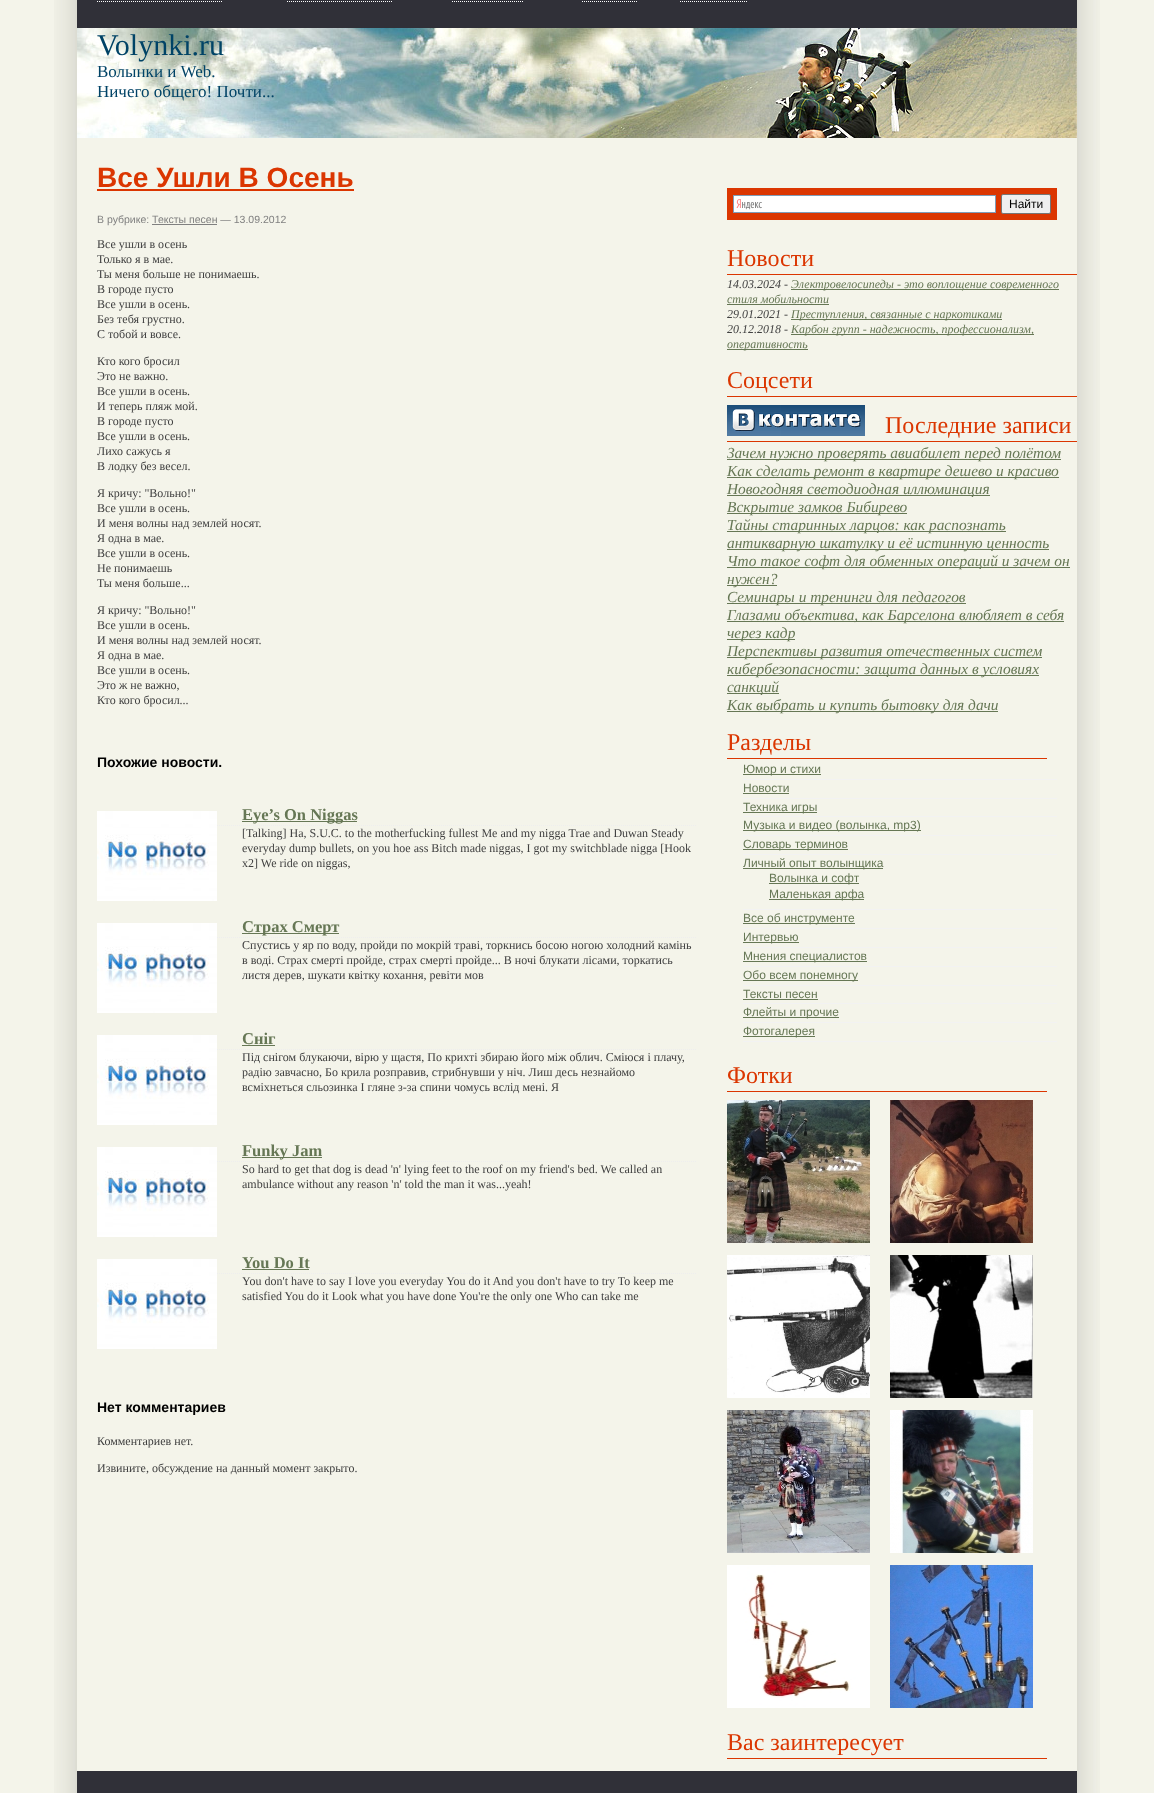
<svg xmlns="http://www.w3.org/2000/svg" width="1154" height="1793">
<rect width="100%" height="100%" fill="#f4f4ea"/>
<image x="54" y="0" width="1046" height="1793" href="media/1.png"/>
<image x="77" y="28" width="1000" height="110" href="media/2.png"/>
<rect x="77" width="1000" height="28" fill="#303038"/>
<path d="M97 1.5h126" fill="none" stroke="#fff" stroke-dasharray="1 1"/>
<path d="M287 1.5h106" fill="none" stroke="#fff" stroke-dasharray="1 1"/>
<path d="M452 1.5h72" fill="none" stroke="#fff" stroke-dasharray="1 1"/>
<path d="M582 1.5h55" fill="none" stroke="#fff" stroke-dasharray="1 1"/>
<path d="M680 1.5h67" fill="none" stroke="#fff" stroke-dasharray="1 1"/>
<text x="97" y="55" style="font-family:Liberation Serif;font-size:30px;fill:#004366">Volynki.ru</text>
<text x="97" y="77" style="font-family:Liberation Serif;font-size:17px;fill:#004366">Волынки и Web.</text>
<text x="97" y="97" style="font-family:Liberation Serif;font-size:17px;fill:#004366">Ничего общего! Почти...</text>
<text x="97" y="187" style="font-family:Liberation Sans;font-size:28px;font-weight:bold;fill:#db3601">Все Ушли В Осень</text>
<rect x="97" y="189" width="257" height="2" fill="#db3601"/>
<text x="97" y="223" style="font-family:Liberation Sans;font-size:10.5px;fill:#808080">В рубрике: Тексты песен — 13.09.2012</text>
<rect x="152" y="224" width="65" height="1" fill="#808080"/>
<text x="97" y="248" style="font-family:Liberation Serif;font-size:12px;fill:#404040">Все ушли в осень</text>
<text x="97" y="263" style="font-family:Liberation Serif;font-size:12px;fill:#404040">Только я в мае.</text>
<text x="97" y="278" style="font-family:Liberation Serif;font-size:12px;fill:#404040">Ты меня больше не понимаешь.</text>
<text x="97" y="293" style="font-family:Liberation Serif;font-size:12px;fill:#404040">В городе пусто</text>
<text x="97" y="308" style="font-family:Liberation Serif;font-size:12px;fill:#404040">Все ушли в осень.</text>
<text x="97" y="323" style="font-family:Liberation Serif;font-size:12px;fill:#404040">Без тебя грустно.</text>
<text x="97" y="338" style="font-family:Liberation Serif;font-size:12px;fill:#404040">С тобой и вовсе.</text>
<text x="97" y="365" style="font-family:Liberation Serif;font-size:12px;fill:#404040">Кто кого бросил</text>
<text x="97" y="380" style="font-family:Liberation Serif;font-size:12px;fill:#404040">Это не важно.</text>
<text x="97" y="395" style="font-family:Liberation Serif;font-size:12px;fill:#404040">Все ушли в осень.</text>
<text x="97" y="410" style="font-family:Liberation Serif;font-size:12px;fill:#404040">И теперь пляж мой.</text>
<text x="97" y="425" style="font-family:Liberation Serif;font-size:12px;fill:#404040">В городе пусто</text>
<text x="97" y="440" style="font-family:Liberation Serif;font-size:12px;fill:#404040">Все ушли в осень.</text>
<text x="97" y="455" style="font-family:Liberation Serif;font-size:12px;fill:#404040">Лихо сажусь я</text>
<text x="97" y="470" style="font-family:Liberation Serif;font-size:12px;fill:#404040">В лодку без весел.</text>
<text x="97" y="497" style="font-family:Liberation Serif;font-size:12px;fill:#404040">Я кричу: "Вольно!"</text>
<text x="97" y="512" style="font-family:Liberation Serif;font-size:12px;fill:#404040">Все ушли в осень.</text>
<text x="97" y="527" style="font-family:Liberation Serif;font-size:12px;fill:#404040">И меня волны над землей носят.</text>
<text x="97" y="542" style="font-family:Liberation Serif;font-size:12px;fill:#404040">Я одна в мае.</text>
<text x="97" y="557" style="font-family:Liberation Serif;font-size:12px;fill:#404040">Все ушли в осень.</text>
<text x="97" y="572" style="font-family:Liberation Serif;font-size:12px;fill:#404040">Не понимаешь</text>
<text x="97" y="587" style="font-family:Liberation Serif;font-size:12px;fill:#404040">Ты меня больше...</text>
<text x="97" y="614" style="font-family:Liberation Serif;font-size:12px;fill:#404040">Я кричу: "Вольно!"</text>
<text x="97" y="629" style="font-family:Liberation Serif;font-size:12px;fill:#404040">Все ушли в осень.</text>
<text x="97" y="644" style="font-family:Liberation Serif;font-size:12px;fill:#404040">И меня волны над землей носят.</text>
<text x="97" y="659" style="font-family:Liberation Serif;font-size:12px;fill:#404040">Я одна в мае.</text>
<text x="97" y="674" style="font-family:Liberation Serif;font-size:12px;fill:#404040">Все ушли в осень.</text>
<text x="97" y="689" style="font-family:Liberation Serif;font-size:12px;fill:#404040">Это ж не важно,</text>
<text x="97" y="704" style="font-family:Liberation Serif;font-size:12px;fill:#404040">Кто кого бросил...</text>
<text x="97" y="767" style="font-family:Liberation Sans;font-size:14px;font-weight:bold;fill:#000">Похожие новости.</text>
<path d="M97 825.5h600" fill="none" stroke="#eee" stroke-dasharray="1 1"/>
<image x="97" y="811" width="120" height="90" href="media/3.png"/>
<rect x="242" y="821" width="115" height="1" fill="#675"/>
<text x="242" y="820" style="font-family:Liberation Serif;font-size:16.5px;font-weight:bold;fill:#675">Eye’s On Niggas</text>
<text x="242" y="837" style="font-family:Liberation Serif;font-size:12px;fill:#404040">[Talking] Ha, S.U.C. to the motherfucking fullest Me and my nigga Trae and Duwan Steady</text>
<text x="242" y="852" style="font-family:Liberation Serif;font-size:12px;fill:#404040">everyday dump bullets, on you hoe ass Bitch made niggas, I got my switchblade nigga [Hook</text>
<text x="242" y="867" style="font-family:Liberation Serif;font-size:12px;fill:#404040">x2] We ride on niggas,</text>
<path d="M97 937.5h600" fill="none" stroke="#eee" stroke-dasharray="1 1"/>
<image x="97" y="923" width="120" height="90" href="media/3.png"/>
<rect x="242" y="933" width="97" height="1" fill="#675"/>
<text x="242" y="932" style="font-family:Liberation Serif;font-size:16.5px;font-weight:bold;fill:#675">Страх Смерт</text>
<text x="242" y="949" style="font-family:Liberation Serif;font-size:12px;fill:#404040">Спустись у яр по воду, пройди по мокрій траві, торкнись босою ногою холодний камінь</text>
<text x="242" y="964" style="font-family:Liberation Serif;font-size:12px;fill:#404040">в воді. Страх смерті пройде, страх смерті пройде... В ночі блукати лісами, торкатись</text>
<text x="242" y="979" style="font-family:Liberation Serif;font-size:12px;fill:#404040">листя дерев, шукати квітку кохання, ревіти мов</text>
<path d="M97 1049.5h600" fill="none" stroke="#eee" stroke-dasharray="1 1"/>
<image x="97" y="1035" width="120" height="90" href="media/3.png"/>
<text x="242" y="1044" style="font-family:Liberation Serif;font-size:16.5px;font-weight:bold;fill:#675">Сніг</text>
<rect x="242" y="1045" width="33" height="1" fill="#675"/>
<text x="242" y="1061" style="font-family:Liberation Serif;font-size:12px;fill:#404040">Під снігом блукаючи, вірю у щастя, По крихті збираю його між облич. Сміюся і плачу,</text>
<text x="242" y="1076" style="font-family:Liberation Serif;font-size:12px;fill:#404040">радію завчасно, Бо крила розправив, стрибнувши у ніч. Лиш десь незнайомо</text>
<text x="242" y="1091" style="font-family:Liberation Serif;font-size:12px;fill:#404040">всміхнеться сльозинка І гляне з-за спини чомусь вслід мені. Я</text>
<path d="M97 1161.5h600" fill="none" stroke="#eee" stroke-dasharray="1 1"/>
<image x="97" y="1147" width="120" height="90" href="media/3.png"/>
<rect x="242" y="1157" width="80" height="1" fill="#675"/>
<text x="242" y="1156" style="font-family:Liberation Serif;font-size:16.5px;font-weight:bold;fill:#675">Funky Jam</text>
<text x="242" y="1173" style="font-family:Liberation Serif;font-size:12px;fill:#404040">So hard to get that dog is dead 'n' lying feet to the roof on my friend's bed. We called an</text>
<text x="242" y="1188" style="font-family:Liberation Serif;font-size:12px;fill:#404040">ambulance without any reason 'n' told the man it was...yeah!</text>
<path d="M97 1273.5h600" fill="none" stroke="#eee" stroke-dasharray="1 1"/>
<image x="97" y="1259" width="120" height="90" href="media/3.png"/>
<text x="242" y="1268" style="font-family:Liberation Serif;font-size:16.5px;font-weight:bold;fill:#675">You Do It</text>
<rect x="242" y="1269" width="67" height="1" fill="#675"/>
<text x="242" y="1285" style="font-family:Liberation Serif;font-size:12px;fill:#404040">You don't have to say I love you everyday You do it And you don't have to try To keep me</text>
<text x="242" y="1300" style="font-family:Liberation Serif;font-size:12px;fill:#404040">satisfied You do it Look what you have done You're the only one Who can take me</text>
<text x="97" y="1412" style="font-family:Liberation Sans;font-size:14px;font-weight:bold;fill:#000">Нет комментариев</text>
<text x="97" y="1445" style="font-family:Liberation Serif;font-size:12px;fill:#404040">Комментариев нет.</text>
<text x="97" y="1472" style="font-family:Liberation Serif;font-size:12px;fill:#404040">Извините, обсуждение на данный момент закрыто.</text>
<rect x="727" y="188" width="330" height="32" fill="#db3601"/>
<rect x="734" y="196" width="261" height="16" fill="#fff"/>
<image x="736" y="199" width="26" height="11" href="media/4.png"/>
<rect x="733.5" y="195.5" width="262" height="17" fill="none" stroke="#7f9db9"/>
<rect x="1001.5" y="194.5" width="49" height="19" rx="1.5" fill="#efefef" stroke="#767676"/>
<text x="1009" y="208" style="font-family:Liberation Sans;font-size:12px;fill:#000">Найти</text>
<rect x="727" y="274" width="350" height="1" fill="#db3601"/>
<text x="727" y="266" style="font-family:Liberation Serif;font-size:24px;fill:#db3601">Новости</text>
<text x="727" y="288" style="font-family:Liberation Serif;font-size:12px;font-style:italic;fill:#404040">14.03.2024 -</text>
<rect x="791" y="289" width="268" height="1" fill="#675"/>
<text x="791" y="288" style="font-family:Liberation Serif;font-size:12px;font-style:italic;fill:#675">Электровелосипеды - это воплощение современного</text>
<text x="727" y="303" style="font-family:Liberation Serif;font-size:12px;font-style:italic;fill:#675">стиля мобильности</text>
<rect x="727" y="304" width="102" height="1" fill="#675"/>
<text x="727" y="318" style="font-family:Liberation Serif;font-size:12px;font-style:italic;fill:#404040">29.01.2021 -</text>
<rect x="791" y="319" width="211" height="1" fill="#675"/>
<text x="791" y="318" style="font-family:Liberation Serif;font-size:12px;font-style:italic;fill:#675">Преступления, связанные с наркотиками</text>
<text x="727" y="333" style="font-family:Liberation Serif;font-size:12px;font-style:italic;fill:#404040">20.12.2018 -</text>
<rect x="791" y="334" width="243" height="1" fill="#675"/>
<text x="791" y="333" style="font-family:Liberation Serif;font-size:12px;font-style:italic;fill:#675">Карбон групп - надежность, профессионализм,</text>
<rect x="727" y="349" width="81" height="1" fill="#675"/>
<text x="727" y="348" style="font-family:Liberation Serif;font-size:12px;font-style:italic;fill:#675">оперативность</text>
<rect x="727" y="396" width="350" height="1" fill="#db3601"/>
<text x="727" y="388" style="font-family:Liberation Serif;font-size:24px;fill:#db3601">Соцсети</text>
<image x="727" y="405" width="138" height="31" href="media/5.png"/>
<rect x="727" y="441" width="350" height="1" fill="#db3601"/>
<text x="885" y="433" style="font-family:Liberation Serif;font-size:24px;fill:#db3601">Последние записи</text>
<rect x="727" y="459" width="334" height="1" fill="#675"/>
<text x="727" y="458" style="font-family:Liberation Serif;font-size:15.4px;font-style:italic;fill:#675">Зачем нужно проверять авиабилет перед полётом</text>
<rect x="727" y="477" width="332" height="1" fill="#675"/>
<text x="727" y="476" style="font-family:Liberation Serif;font-size:15.4px;font-style:italic;fill:#675">Как сделать ремонт в квартире дешево и красиво</text>
<rect x="727" y="495" width="263" height="1" fill="#675"/>
<text x="727" y="494" style="font-family:Liberation Serif;font-size:15.4px;font-style:italic;fill:#675">Новогодняя светодиодная иллюминация</text>
<rect x="727" y="513" width="180" height="1" fill="#675"/>
<text x="727" y="512" style="font-family:Liberation Serif;font-size:15.4px;font-style:italic;fill:#675">Вскрытие замков Бибирево</text>
<rect x="727" y="531" width="279" height="1" fill="#675"/>
<text x="727" y="530" style="font-family:Liberation Serif;font-size:15.4px;font-style:italic;fill:#675">Тайны старинных ларцов: как распознать</text>
<rect x="727" y="549" width="322" height="1" fill="#675"/>
<text x="727" y="548" style="font-family:Liberation Serif;font-size:15.4px;font-style:italic;fill:#675">антикварную шкатулку и её истинную ценность</text>
<rect x="727" y="567" width="343" height="1" fill="#675"/>
<text x="727" y="566" style="font-family:Liberation Serif;font-size:15.4px;font-style:italic;fill:#675">Что такое софт для обменных операций и зачем он</text>
<rect x="727" y="585" width="50" height="1" fill="#675"/>
<text x="727" y="584" style="font-family:Liberation Serif;font-size:15.4px;font-style:italic;fill:#675">нужен?</text>
<rect x="727" y="603" width="239" height="1" fill="#675"/>
<text x="727" y="602" style="font-family:Liberation Serif;font-size:15.4px;font-style:italic;fill:#675">Семинары и тренинги для педагогов</text>
<rect x="727" y="621" width="337" height="1" fill="#675"/>
<text x="727" y="620" style="font-family:Liberation Serif;font-size:15.4px;font-style:italic;fill:#675">Глазами объектива, как Барселона влюбляет в себя</text>
<rect x="727" y="639" width="68" height="1" fill="#675"/>
<text x="727" y="638" style="font-family:Liberation Serif;font-size:15.4px;font-style:italic;fill:#675">через кадр</text>
<rect x="727" y="657" width="315" height="1" fill="#675"/>
<text x="727" y="656" style="font-family:Liberation Serif;font-size:15.4px;font-style:italic;fill:#675">Перспективы развития отечественных систем</text>
<rect x="727" y="675" width="312" height="1" fill="#675"/>
<text x="727" y="674" style="font-family:Liberation Serif;font-size:15.4px;font-style:italic;fill:#675">кибербезопасности: защита данных в условиях</text>
<rect x="727" y="693" width="52" height="1" fill="#675"/>
<text x="727" y="692" style="font-family:Liberation Serif;font-size:15.4px;font-style:italic;fill:#675">санкций</text>
<rect x="727" y="711" width="271" height="1" fill="#675"/>
<text x="727" y="710" style="font-family:Liberation Serif;font-size:15.4px;font-style:italic;fill:#675">Как выбрать и купить бытовку для дачи</text>
<rect x="727" y="758" width="320" height="1" fill="#db3601"/>
<text x="727" y="750" style="font-family:Liberation Serif;font-size:24px;fill:#db3601">Разделы</text>
<rect x="743" y="779" width="314" height="1" fill="#f2f2f2"/>
<rect x="743" y="774" width="78" height="1" fill="#675"/>
<text x="743" y="773" style="font-family:Liberation Sans;font-size:12px;fill:#675">Юмор и стихи</text>
<rect x="743" y="798" width="314" height="1" fill="#f2f2f2"/>
<text x="743" y="792" style="font-family:Liberation Sans;font-size:12px;fill:#675">Новости</text>
<rect x="743" y="793" width="46" height="1" fill="#675"/>
<rect x="743" y="816" width="314" height="1" fill="#f2f2f2"/>
<rect x="743" y="812" width="74" height="1" fill="#675"/>
<text x="743" y="811" style="font-family:Liberation Sans;font-size:12px;fill:#675">Техника игры</text>
<rect x="743" y="835" width="314" height="1" fill="#f2f2f2"/>
<rect x="743" y="830" width="178" height="1" fill="#675"/>
<text x="743" y="829" style="font-family:Liberation Sans;font-size:12px;fill:#675">Музыка и видео (волынка, mp3)</text>
<rect x="743" y="854" width="314" height="1" fill="#f2f2f2"/>
<rect x="743" y="849" width="105" height="1" fill="#675"/>
<text x="743" y="848" style="font-family:Liberation Sans;font-size:12px;fill:#675">Словарь терминов</text>
<rect x="743" y="909" width="314" height="1" fill="#f2f2f2"/>
<rect x="743" y="868" width="140" height="1" fill="#675"/>
<text x="743" y="867" style="font-family:Liberation Sans;font-size:12px;fill:#675">Личный опыт волынщика</text>
<rect x="769" y="883" width="90" height="1" fill="#675"/>
<text x="769" y="882" style="font-family:Liberation Sans;font-size:12px;fill:#675">Волынка и софт</text>
<rect x="769" y="899" width="95" height="1" fill="#675"/>
<text x="769" y="898" style="font-family:Liberation Sans;font-size:12px;fill:#675">Маленькая арфа</text>
<rect x="743" y="928" width="314" height="1" fill="#f2f2f2"/>
<rect x="743" y="923" width="112" height="1" fill="#675"/>
<text x="743" y="922" style="font-family:Liberation Sans;font-size:12px;fill:#675">Все об инструменте</text>
<rect x="743" y="947" width="314" height="1" fill="#f2f2f2"/>
<rect x="743" y="942" width="56" height="1" fill="#675"/>
<text x="743" y="941" style="font-family:Liberation Sans;font-size:12px;fill:#675">Интервью</text>
<rect x="743" y="966" width="314" height="1" fill="#f2f2f2"/>
<rect x="743" y="961" width="124" height="1" fill="#675"/>
<text x="743" y="960" style="font-family:Liberation Sans;font-size:12px;fill:#675">Мнения специалистов</text>
<rect x="743" y="985" width="314" height="1" fill="#f2f2f2"/>
<rect x="743" y="980" width="115" height="1" fill="#675"/>
<text x="743" y="979" style="font-family:Liberation Sans;font-size:12px;fill:#675">Обо всем понемногу</text>
<rect x="743" y="1003" width="314" height="1" fill="#f2f2f2"/>
<text x="743" y="998" style="font-family:Liberation Sans;font-size:12px;fill:#675">Тексты песен</text>
<rect x="743" y="999" width="75" height="1" fill="#675"/>
<rect x="743" y="1022" width="314" height="1" fill="#f2f2f2"/>
<rect x="743" y="1017" width="96" height="1" fill="#675"/>
<text x="743" y="1016" style="font-family:Liberation Sans;font-size:12px;fill:#675">Флейты и прочие</text>
<rect x="743" y="1041" width="314" height="1" fill="#f2f2f2"/>
<rect x="743" y="1036" width="72" height="1" fill="#675"/>
<text x="743" y="1035" style="font-family:Liberation Sans;font-size:12px;fill:#675">Фотогалерея</text>
<rect x="727" y="1091" width="320" height="1" fill="#db3601"/>
<text x="727" y="1083" style="font-family:Liberation Serif;font-size:24px;fill:#db3601">Фотки</text>
<image x="727" y="1100" width="143" height="143" href="media/6.png"/>
<image x="890" y="1100" width="143" height="143" href="media/7.png"/>
<image x="727" y="1255" width="143" height="143" href="media/8.png"/>
<image x="890" y="1255" width="143" height="143" href="media/9.png"/>
<image x="727" y="1410" width="143" height="143" href="media/10.png"/>
<image x="890" y="1410" width="143" height="143" href="media/11.png"/>
<image x="727" y="1565" width="143" height="143" href="media/12.png"/>
<image x="890" y="1565" width="143" height="143" href="media/13.png"/>
<rect x="727" y="1758" width="320" height="1" fill="#db3601"/>
<text x="727" y="1750" style="font-family:Liberation Serif;font-size:24px;fill:#db3601">Вас заинтересует</text>
<rect x="77" y="1771" width="1000" height="22" fill="#303038"/>
</svg>
